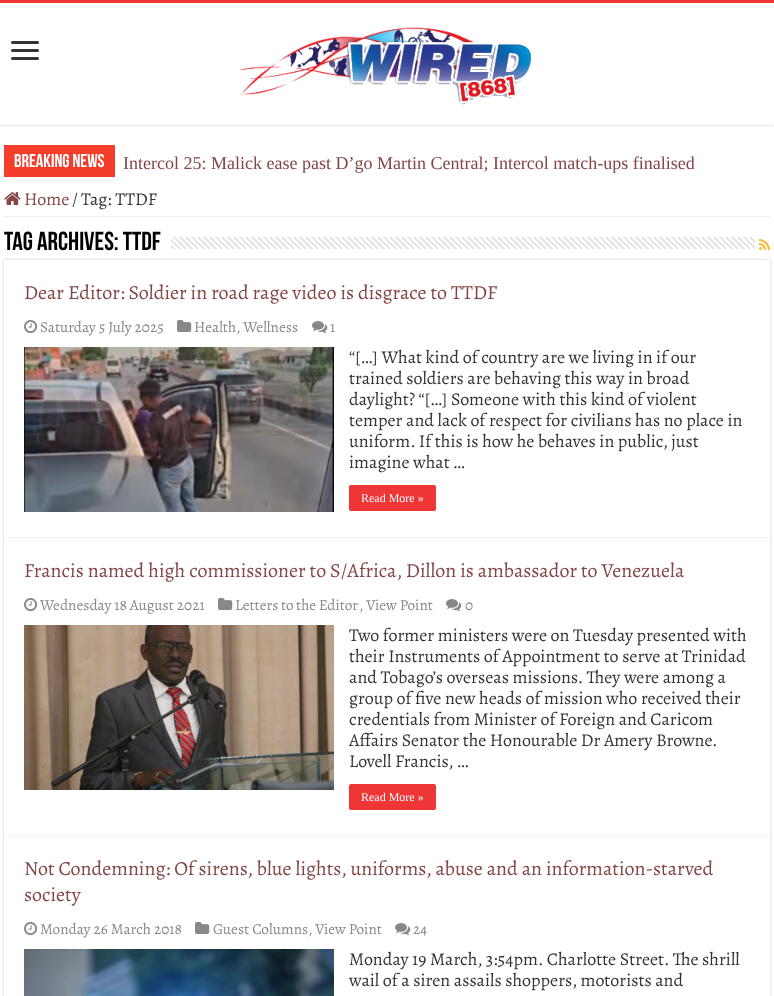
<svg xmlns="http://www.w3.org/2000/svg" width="774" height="996">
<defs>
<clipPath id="clip1"><rect x="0" y="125" width="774" height="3"/></clipPath>
<clipPath id="clip2"><path d="M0 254h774v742h-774zm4 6h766v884h-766z" clip-rule="evenodd"/></clipPath>
</defs>
<rect width="100%" height="100%" fill="#fff"/>
<g clip-path="url(#clip1)">
<rect width="774" height="125" fill="#cacaca" filter="blur(1.5px)"/>
</g>
<rect width="774" height="3" fill="#ef3636"/>
<rect x="11" y="41" width="28" height="3" rx="1.5" fill="#333"/>
<rect x="11" y="49" width="28" height="3" rx="1.5" fill="#333"/>
<rect x="11" y="57" width="28" height="3" rx="1.5" fill="#333"/>
<image x="240" y="27" width="291" height="78" href="media/1.png"/>
<rect x="4" y="145" width="111" height="32" fill="#f43d2a"/>
<text x="14" y="167" style="font-family:Bebas Neue;font-size:18.5px;font-weight:bold;fill:#fff">Breaking News</text>
<text x="123" y="169" style="font-family:Liberation Serif;font-size:18px;fill:#854545">Intercol 25: Malick ease past D’go Martin Central; Intercol match-ups finalised</text>
<rect x="4" y="216" width="766" height="1" fill="#eee"/>
<image x="4" y="192" width="17" height="13" href="media/2.png"/>
<text x="24" y="205" style="font-family:Alegreya;font-size:18px;fill:#854545">Home</text>
<text x="72" y="205" style="font-family:Alegreya;font-size:18px;fill:#333">/</text>
<text x="81" y="205" style="font-family:Alegreya;font-size:18px;fill:#333">Tag: TTDF</text>
<text x="4" y="250" style="font-family:Bebas Neue;font-size:26px;font-weight:bold;fill:#000">Tag Archives: TTDF</text>
<image x="171" y="237" width="584" height="12" href="media/3.png"/>
<image x="759" y="239" width="11" height="11" href="media/4.png"/>
<g clip-path="url(#clip2)">
<rect x="4" y="260" width="766" height="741" fill="#cacaca" filter="blur(1.5px)"/>
</g>
<rect x="4" y="537" width="766" height="1" fill="#f2f2f2"/>
<text x="24" y="299" style="font-family:Alegreya;font-size:20px;fill:#854545">Dear Editor: Soldier in road rage video is disgrace to TTDF</text>
<image x="24" y="320" width="14" height="14" href="media/5.png"/>
<text x="40" y="332" style="font-family:Alegreya;font-size:15.25px;fill:#888">Saturday 5 July 2025</text>
<image x="177" y="320" width="15" height="12" href="media/6.png"/>
<text x="194" y="332" style="font-family:Alegreya;font-size:15.25px;fill:#888">Health, Wellness</text>
<image x="312" y="321" width="16" height="12" href="media/7.png"/>
<text x="330" y="332" style="font-family:Alegreya;font-size:15.25px;fill:#888">1</text>
<image x="24" y="347" width="310" height="165" href="media/8.png"/>
<text x="349" y="363" style="font-family:Alegreya;font-size:18px;fill:#333">“[…] What kind of country are we living in if our</text>
<text x="349" y="384" style="font-family:Alegreya;font-size:18px;fill:#333">trained soldiers are behaving this way in broad</text>
<text x="349" y="405" style="font-family:Alegreya;font-size:18px;fill:#333">daylight? “[…] Someone with this kind of violent</text>
<text x="349" y="426" style="font-family:Alegreya;font-size:18px;fill:#333">temper and lack of respect for civilians has no place in</text>
<text x="349" y="447" style="font-family:Alegreya;font-size:18px;fill:#333">uniform. If this is how he behaves in public, just</text>
<text x="349" y="468" style="font-family:Alegreya;font-size:18px;fill:#333">imagine what …</text>
<rect x="349" y="485" width="87" height="26" rx="2" fill="#ef3636"/>
<text x="361" y="502" style="font-family:Liberation Serif;font-size:12px;fill:#fff">Read More »</text>
<rect x="4" y="835" width="766" height="1" fill="#f2f2f2"/>
<text x="24" y="577" style="font-family:Alegreya;font-size:20px;fill:#854545">Francis named high commissioner to S/Africa, Dillon is ambassador to Venezuela</text>
<image x="24" y="598" width="14" height="14" href="media/5.png"/>
<text x="40" y="610" style="font-family:Alegreya;font-size:15.25px;fill:#888">Wednesday 18 August 2021</text>
<image x="218" y="598" width="15" height="12" href="media/6.png"/>
<text x="235" y="610" word-spacing="-0.5" style="font-family:Alegreya;font-size:15.25px;fill:#888">Letters to the Editor</text>
<text x="359" y="610" style="font-family:Alegreya;font-size:15.25px;fill:#888">, View Point</text>
<image x="446" y="599" width="16" height="12" href="media/7.png"/>
<text x="465" y="610" style="font-family:Alegreya;font-size:15.25px;fill:#888">0</text>
<image x="24" y="625" width="310" height="165" href="media/9.png"/>
<text x="349" y="641" style="font-family:Alegreya;font-size:18px;fill:#333">Two former ministers were on Tuesday presented with</text>
<text x="349" y="662" style="font-family:Alegreya;font-size:18px;fill:#333">their Instruments of Appointment to serve at Trinidad</text>
<text x="349" y="683" style="font-family:Alegreya;font-size:18px;fill:#333">and Tobago’s overseas missions. They were among a</text>
<text x="349" y="704" style="font-family:Alegreya;font-size:18px;fill:#333">group of five new heads of mission who received their</text>
<text x="349" y="725" style="font-family:Alegreya;font-size:18px;fill:#333">credentials from Minister of Foreign and Caricom</text>
<text x="349" y="746" style="font-family:Alegreya;font-size:18px;fill:#333">Affairs Senator the Honourable Dr Amery Browne.</text>
<text x="349" y="767" style="font-family:Alegreya;font-size:18px;fill:#333">Lovell Francis, …</text>
<rect x="349" y="784" width="87" height="26" rx="2" fill="#ef3636"/>
<text x="361" y="801" style="font-family:Liberation Serif;font-size:12px;fill:#fff">Read More »</text>
<text x="24" y="875" style="font-family:Alegreya;font-size:20px;fill:#854545">Not Condemning: Of sirens, blue lights, uniforms, abuse and an information-starved</text>
<text x="24" y="901" style="font-family:Alegreya;font-size:20px;fill:#854545">society</text>
<image x="24" y="922" width="14" height="14" href="media/5.png"/>
<text x="40" y="934" style="font-family:Alegreya;font-size:15.25px;fill:#888">Monday 26 March 2018</text>
<image x="195" y="922" width="15" height="12" href="media/6.png"/>
<text x="213" y="934" style="font-family:Alegreya;font-size:15.25px;fill:#888">Guest Columns</text>
<text x="308" y="934" style="font-family:Alegreya;font-size:15.25px;fill:#888">, View Point</text>
<image x="395" y="923" width="16" height="12" href="media/7.png"/>
<text x="413" y="934" style="font-family:Alegreya;font-size:15.25px;fill:#888">24</text>
<image x="24" y="949" width="310" height="47" href="media/10.png"/>
<text x="349" y="965" style="font-family:Alegreya;font-size:18px;fill:#333">Monday 19 March, 3:54pm. Charlotte Street. The shrill</text>
<text x="349" y="986" style="font-family:Alegreya;font-size:18px;fill:#333">wail of a siren assails shoppers, motorists and</text>
</svg>
